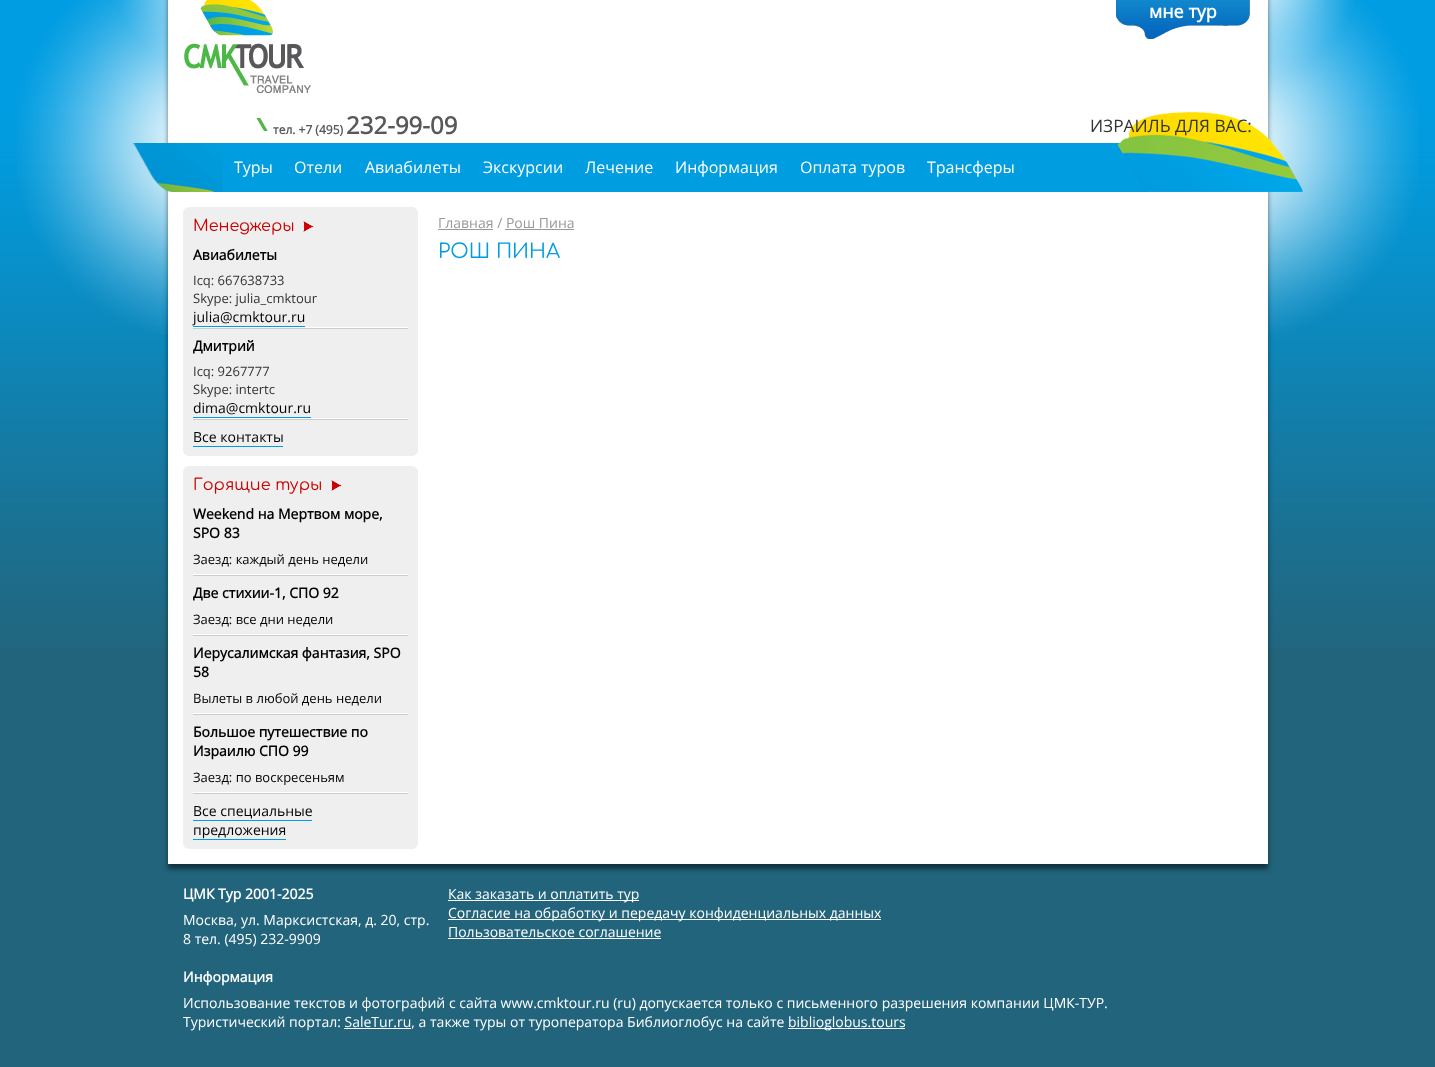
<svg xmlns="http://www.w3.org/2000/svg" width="1435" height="1067">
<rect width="100%" height="100%" fill="#22647b"/>
<image x="0" y="0" width="1435" height="648" href="media/1.png"/>
<image x="17" y="0" width="151" height="334" href="media/2.png"/>
<image x="1268" y="0" width="151" height="334" href="media/3.png"/>
<rect x="168" y="-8" width="1100" height="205" fill="#00000080" filter="blur(2.5px)"/>
<rect x="168" width="1100" height="192" fill="#fff"/>
<image x="184" y="0" width="127" height="93" href="media/4.png"/>
<image x="1116" y="0" width="134" height="39" href="media/5.png"/>
<text x="1149" y="18" style="font-family:Open Sans;font-size:18px;font-weight:bold;fill:#fff">мне тур</text>
<image x="256" y="118" width="12" height="13" href="media/6.png"/>
<text x="273" y="134" style="font-family:Open Sans;font-size:12px;font-weight:bold;fill:#58585a">тел. +7 (495)</text>
<text x="346" y="134" style="font-family:Open Sans;font-size:24px;font-weight:bold;fill:#58585a">232-99-09</text>
<image x="1120" y="112" width="153" height="31" href="media/7.png"/>
<text x="1090" y="132" style="font-family:Open Sans;font-size:17.25px;fill:#333">ИЗРАИЛЬ ДЛЯ ВАС:</text>
<image x="133" y="143" width="90" height="49" href="media/8.png"/>
<image x="1117" y="143" width="186" height="49" href="media/9.png"/>
<rect x="223" y="143" width="894" height="49" fill="#009de0"/>
<text x="234" y="173" style="font-family:Open Sans;font-size:16px;fill:#fff">Туры</text>
<text x="294" y="173" style="font-family:Open Sans;font-size:16px;fill:#fff">Отели</text>
<text x="365" y="173" style="font-family:Open Sans;font-size:16px;fill:#fff">Авиабилеты</text>
<text x="483" y="173" style="font-family:Open Sans;font-size:16px;fill:#fff">Экскурсии</text>
<text x="585" y="173" style="font-family:Open Sans;font-size:16px;fill:#fff">Лечение</text>
<text x="675" y="173" style="font-family:Open Sans;font-size:16px;fill:#fff">Информация</text>
<text x="800" y="173" style="font-family:Open Sans;font-size:16px;fill:#fff">Оплата туров</text>
<text x="927" y="173" style="font-family:Open Sans;font-size:16px;fill:#fff">Трансферы</text>
<rect x="168" y="197" width="1100" height="672" fill="#00000080" filter="blur(2.5px)"/>
<rect x="168" y="192" width="1100" height="672" fill="#fff"/>
<rect x="183" y="207" width="235" height="249" rx="6" fill="#efefef"/>
<text x="193" y="231" style="font-family:Comfortaa;font-size:16px;fill:#c00">Менеджеры</text>
<image x="303" y="220" width="11" height="12" href="media/10.png"/>
<image x="193" y="327" width="215" height="2" href="media/11.png"/>
<text x="193" y="260" style="font-family:Open Sans;font-size:14px;font-weight:bold;fill:#000">Авиабилеты</text>
<text x="193" y="285" style="font-family:Open Sans;font-size:13px;fill:#333">Icq: 667638733</text>
<text x="193" y="303" style="font-family:Open Sans;font-size:13px;fill:#333">Skype: julia_cmktour</text>
<text x="193" y="322" style="font-family:Open Sans;font-size:14px;fill:#000">julia@cmktour.ru</text>
<rect x="193" y="326" width="112" height="1" fill="#009de0"/>
<image x="193" y="418" width="215" height="2" href="media/11.png"/>
<text x="193" y="351" style="font-family:Open Sans;font-size:14px;font-weight:bold;fill:#000">Дмитрий</text>
<text x="193" y="376" style="font-family:Open Sans;font-size:13px;fill:#333">Icq: 9267777</text>
<text x="193" y="394" style="font-family:Open Sans;font-size:13px;fill:#333">Skype: intertc</text>
<text x="193" y="413" style="font-family:Open Sans;font-size:14px;fill:#000">dima@cmktour.ru</text>
<rect x="193" y="417" width="118" height="1" fill="#009de0"/>
<text x="193" y="442" style="font-family:Open Sans;font-size:14px;fill:#000">Все контакты</text>
<rect x="193" y="446" width="90" height="1" fill="#009de0"/>
<rect x="183" y="466" width="235" height="383" rx="6" fill="#efefef"/>
<text x="193" y="490" style="font-family:Comfortaa;font-size:16px;fill:#c00">Горящие туры</text>
<image x="331" y="479" width="11" height="12" href="media/10.png"/>
<image x="193" y="574" width="215" height="2" href="media/11.png"/>
<text x="193" y="519" style="font-family:Open Sans;font-size:14px;font-weight:bold;fill:#000">Weekend на Мертвом море,</text>
<text x="193" y="538" style="font-family:Open Sans;font-size:14px;font-weight:bold;fill:#000">SPO 83</text>
<text x="193" y="564" style="font-family:Open Sans;font-size:13px;fill:#000">Заезд: каждый день недели</text>
<image x="193" y="634" width="215" height="2" href="media/11.png"/>
<text x="193" y="598" style="font-family:Open Sans;font-size:14px;font-weight:bold;fill:#000">Две стихии-1, СПО 92</text>
<text x="193" y="624" style="font-family:Open Sans;font-size:13px;fill:#000">Заезд: все дни недели</text>
<image x="193" y="713" width="215" height="2" href="media/11.png"/>
<text x="193" y="658" style="font-family:Open Sans;font-size:14px;font-weight:bold;fill:#000">Иерусалимская фантазия, SPO</text>
<text x="193" y="677" style="font-family:Open Sans;font-size:14px;font-weight:bold;fill:#000">58</text>
<text x="193" y="703" style="font-family:Open Sans;font-size:13px;fill:#000">Вылеты в любой день недели</text>
<image x="193" y="792" width="215" height="2" href="media/11.png"/>
<text x="193" y="737" style="font-family:Open Sans;font-size:14px;font-weight:bold;fill:#000">Большое путешествие по</text>
<text x="193" y="756" style="font-family:Open Sans;font-size:14px;font-weight:bold;fill:#000">Израилю СПО 99</text>
<text x="193" y="782" style="font-family:Open Sans;font-size:13px;fill:#000">Заезд: по воскресеньям</text>
<text x="193" y="816" style="font-family:Open Sans;font-size:14px;fill:#000">Все специальные</text>
<rect x="193" y="820" width="119" height="1" fill="#009de0"/>
<text x="193" y="835" style="font-family:Open Sans;font-size:14px;fill:#000">предложения</text>
<rect x="193" y="839" width="93" height="1" fill="#009de0"/>
<text x="438" y="228" style="font-family:Open Sans;font-size:14px;fill:#999">Главная / Рош Пина</text>
<rect x="438" y="229" width="55" height="1" fill="#999"/>
<rect x="505" y="229" width="69" height="1" fill="#999"/>
<text x="438" y="258" style="font-family:Comfortaa;font-size:20px;fill:#009de0">РОШ ПИНА</text>
<text x="183" y="899" style="font-family:Open Sans;font-size:14px;font-weight:bold;fill:#fff">ЦМК Тур 2001-2025</text>
<text x="183" y="925" style="font-family:Open Sans;font-size:14px;fill:#fff">Москва, ул. Марксистская, д. 20, стр.</text>
<text x="183" y="944" style="font-family:Open Sans;font-size:14px;fill:#fff">8 тел. (495) 232-9909</text>
<rect x="448" y="900" width="191" height="1" fill="#fff"/>
<text x="448" y="899" style="font-family:Open Sans;font-size:14px;fill:#fff">Как заказать и оплатить тур</text>
<rect x="448" y="919" width="433" height="1" fill="#fff"/>
<text x="448" y="918" style="font-family:Open Sans;font-size:14px;fill:#fff">Согласие на обработку и передачу конфиденциальных данных</text>
<text x="448" y="937" style="font-family:Open Sans;font-size:14px;fill:#fff">Пользовательское соглашение</text>
<rect x="448" y="938" width="213" height="1" fill="#fff"/>
<text x="183" y="982" style="font-family:Open Sans;font-size:14px;font-weight:bold;fill:#fff">Информация</text>
<text x="183" y="1008" style="font-family:Open Sans;font-size:14px;fill:#fff">Использование текстов и фотографий с сайта www.cmktour.ru (ru) допускается только с письменного разрешения компании ЦМК-ТУР.</text>
<text x="183" y="1027" style="font-family:Open Sans;font-size:14px;fill:#fff">Туристический портал: SaleTur.ru, а также туры от туроператора Библиоглобус на сайте</text>
<rect x="788" y="1028" width="117" height="1" fill="#fff"/>
<text x="788" y="1027" style="font-family:Open Sans;font-size:14px;fill:#fff">biblioglobus.tours</text>
<rect x="344" y="1028" width="67" height="1" fill="#fff"/>
</svg>
